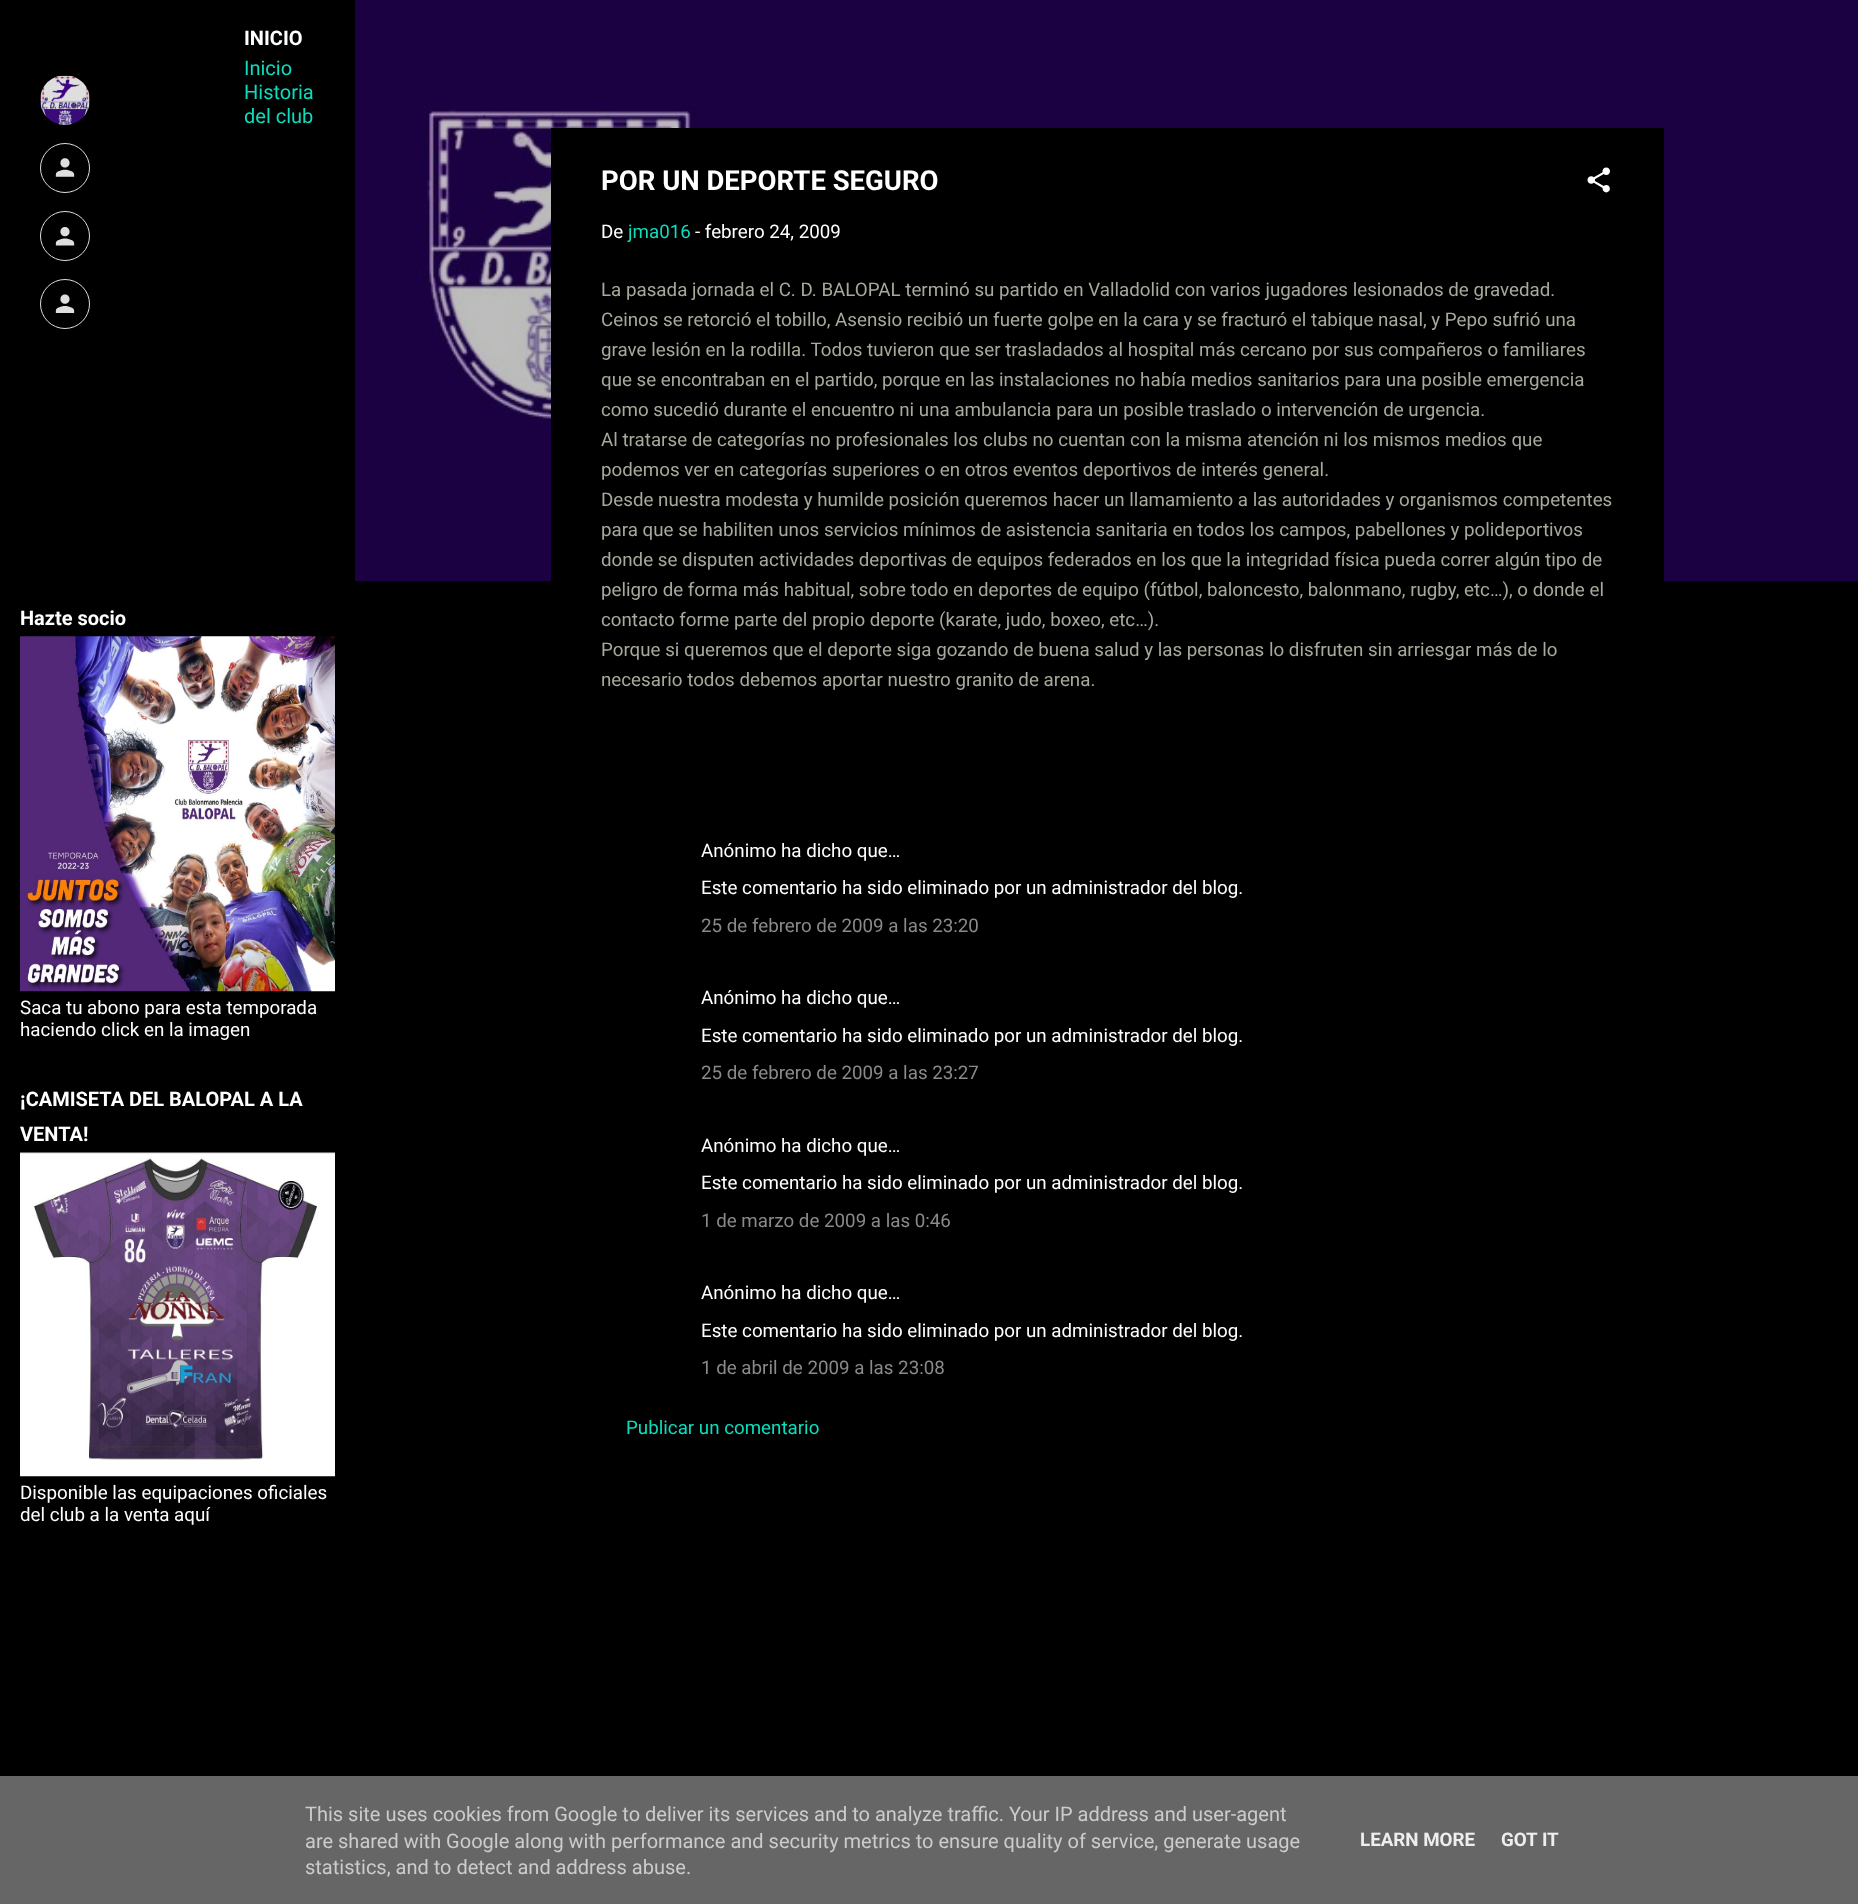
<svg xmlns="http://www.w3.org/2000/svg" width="1858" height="1904">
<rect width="100%" height="100%" fill="#000"/>
<image x="40" y="75" width="50" height="50" href="media/1.png"/>
<circle cx="65" cy="168" r="24.5" fill="none" stroke="#dedede"/>
<image x="55" y="158" width="20" height="19" href="media/2.png"/>
<circle cx="65" cy="236" r="24.5" fill="none" stroke="#dedede"/>
<image x="55" y="227" width="20" height="19" href="media/3.png"/>
<circle cx="65" cy="304" r="24.5" fill="none" stroke="#dedede"/>
<image x="55" y="294" width="20" height="19" href="media/4.png"/>
<text x="244" y="45" style="font-family:Roboto;font-size:20px;font-weight:bold;fill:#fff">INICIO</text>
<text x="244" y="75" style="font-family:Roboto;font-size:20px;fill:#0cddbd">Inicio</text>
<text x="244" y="99" style="font-family:Roboto;font-size:20px;fill:#0cddbd">Historia</text>
<text x="244" y="123" style="font-family:Roboto;font-size:20px;fill:#0cddbd">del club</text>
<text x="20" y="625" style="font-family:Roboto;font-size:20px;font-weight:bold;fill:#fff">Hazte socio</text>
<image x="20" y="636" width="315" height="356" href="media/5.png"/>
<text x="20" y="1014" style="font-family:Roboto;font-size:18.75px;fill:#fff">Saca tu abono para esta temporada</text>
<text x="20" y="1036" style="font-family:Roboto;font-size:18.75px;fill:#fff">haciendo click en la imagen</text>
<text x="20" y="1106" style="font-family:Roboto;font-size:20px;font-weight:bold;fill:#fff">¡CAMISETA DEL BALOPAL A LA</text>
<text x="20" y="1141" style="font-family:Roboto;font-size:20px;font-weight:bold;fill:#fff">VENTA!</text>
<image x="20" y="1152" width="315" height="325" href="media/6.png"/>
<text x="20" y="1499" style="font-family:Roboto;font-size:18.75px;fill:#fff">Disponible las equipaciones oficiales</text>
<text x="20" y="1521" style="font-family:Roboto;font-size:18.75px;fill:#fff">del club a la venta aquí</text>
<image x="355" y="0" width="1503" height="582" href="media/7.png"/>
<rect x="551" y="128" width="1113" height="454" fill="#000"/>
<text x="601" y="190" style="font-family:Roboto;font-size:27.5px;font-weight:bold;fill:#fff">POR UN DEPORTE SEGURO</text>
<image x="1587" y="167" width="23" height="26" href="media/8.png"/>
<text x="601" y="238" style="font-family:Roboto;font-size:18.75px;fill:#fff">De</text>
<text x="628" y="238" style="font-family:Roboto;font-size:18.75px;fill:#0cddbd">jma016</text>
<text x="695" y="238" style="font-family:Roboto;font-size:18.75px;fill:#fff">- febrero 24, 2009</text>
<text x="601" y="296" style="font-family:Roboto;font-size:18.75px;fill:#a8a89b">La pasada jornada el C. D. BALOPAL terminó su partido en Valladolid con varios jugadores lesionados de gravedad.</text>
<text x="601" y="326" style="font-family:Roboto;font-size:18.75px;fill:#a8a89b">Ceinos se retorció el tobillo, Asensio recibió un fuerte golpe en la cara y se fracturó el tabique nasal, y Pepo sufrió una</text>
<text x="601" y="356" style="font-family:Roboto;font-size:18.75px;fill:#a8a89b">grave lesión en la rodilla. Todos tuvieron que ser trasladados al hospital más cercano por sus compañeros o familiares</text>
<text x="601" y="386" style="font-family:Roboto;font-size:18.75px;fill:#a8a89b">que se encontraban en el partido, porque en las instalaciones no había medios sanitarios para una posible emergencia</text>
<text x="601" y="416" style="font-family:Roboto;font-size:18.75px;fill:#a8a89b">como sucedió durante el encuentro ni una ambulancia para un posible traslado o intervención de urgencia.</text>
<text x="601" y="446" style="font-family:Roboto;font-size:18.75px;fill:#a8a89b">Al tratarse de categorías no profesionales los clubs no cuentan con la misma atención ni los mismos medios que</text>
<text x="601" y="476" style="font-family:Roboto;font-size:18.75px;fill:#a8a89b">podemos ver en categorías superiores o en otros eventos deportivos de interés general.</text>
<text x="601" y="506" style="font-family:Roboto;font-size:18.75px;fill:#a8a89b">Desde nuestra modesta y humilde posición queremos hacer un llamamiento a las autoridades y organismos competentes</text>
<text x="601" y="536" style="font-family:Roboto;font-size:18.75px;fill:#a8a89b">para que se habiliten unos servicios mínimos de asistencia sanitaria en todos los campos, pabellones y polideportivos</text>
<text x="601" y="566" style="font-family:Roboto;font-size:18.75px;fill:#a8a89b">donde se disputen actividades deportivas de equipos federados en los que la integridad física pueda correr algún tipo de</text>
<text x="601" y="596" style="font-family:Roboto;font-size:18.75px;fill:#a8a89b">peligro de forma más habitual, sobre todo en deportes de equipo (fútbol, baloncesto, balonmano, rugby, etc…), o donde el</text>
<text x="601" y="626" style="font-family:Roboto;font-size:18.75px;fill:#a8a89b">contacto forme parte del propio deporte (karate, judo, boxeo, etc…).</text>
<text x="601" y="656" style="font-family:Roboto;font-size:18.75px;fill:#a8a89b">Porque si queremos que el deporte siga gozando de buena salud y las personas lo disfruten sin arriesgar más de lo</text>
<text x="601" y="686" style="font-family:Roboto;font-size:18.75px;fill:#a8a89b">necesario todos debemos aportar nuestro granito de arena.</text>
<text x="701" y="857" style="font-family:Roboto;font-size:18.75px;fill:#fff">Anónimo ha dicho que…</text>
<text x="701" y="894" style="font-family:Roboto;font-size:18.75px;fill:#fff">Este comentario ha sido eliminado por un administrador del blog.</text>
<text x="701" y="932" style="font-family:Roboto;font-size:18.75px;fill:#8a8a8a">25 de febrero de 2009 a las 23:20</text>
<text x="701" y="1004" style="font-family:Roboto;font-size:18.75px;fill:#fff">Anónimo ha dicho que…</text>
<text x="701" y="1042" style="font-family:Roboto;font-size:18.75px;fill:#fff">Este comentario ha sido eliminado por un administrador del blog.</text>
<text x="701" y="1079" style="font-family:Roboto;font-size:18.75px;fill:#8a8a8a">25 de febrero de 2009 a las 23:27</text>
<text x="701" y="1152" style="font-family:Roboto;font-size:18.75px;fill:#fff">Anónimo ha dicho que…</text>
<text x="701" y="1189" style="font-family:Roboto;font-size:18.75px;fill:#fff">Este comentario ha sido eliminado por un administrador del blog.</text>
<text x="701" y="1227" style="font-family:Roboto;font-size:18.75px;fill:#8a8a8a">1 de marzo de 2009 a las 0:46</text>
<text x="701" y="1299" style="font-family:Roboto;font-size:18.75px;fill:#fff">Anónimo ha dicho que…</text>
<text x="701" y="1337" style="font-family:Roboto;font-size:18.75px;fill:#fff">Este comentario ha sido eliminado por un administrador del blog.</text>
<text x="701" y="1374" style="font-family:Roboto;font-size:18.75px;fill:#8a8a8a">1 de abril de 2009 a las 23:08</text>
<text x="626" y="1434" style="font-family:Roboto;font-size:18.75px;fill:#0cddbd">Publicar un comentario</text>
<rect y="1776" width="1858" height="128" fill="#666"/>
<text x="305" y="1821" style="font-family:Roboto;font-size:20px;fill:#ccc">This site uses cookies from Google to deliver its services and to analyze traffic. Your IP address and user-agent</text>
<text x="305" y="1848" style="font-family:Roboto;font-size:20px;fill:#ccc">are shared with Google along with performance and security metrics to ensure quality of service, generate usage</text>
<text x="305" y="1874" style="font-family:Roboto;font-size:20px;fill:#ccc">statistics, and to detect and address abuse.</text>
<text x="1360" y="1846" style="font-family:Roboto;font-size:18.75px;font-weight:bold;fill:#eee">LEARN MORE</text>
<text x="1501" y="1846" style="font-family:Roboto;font-size:18.75px;font-weight:bold;fill:#eee">GOT IT</text>
</svg>
